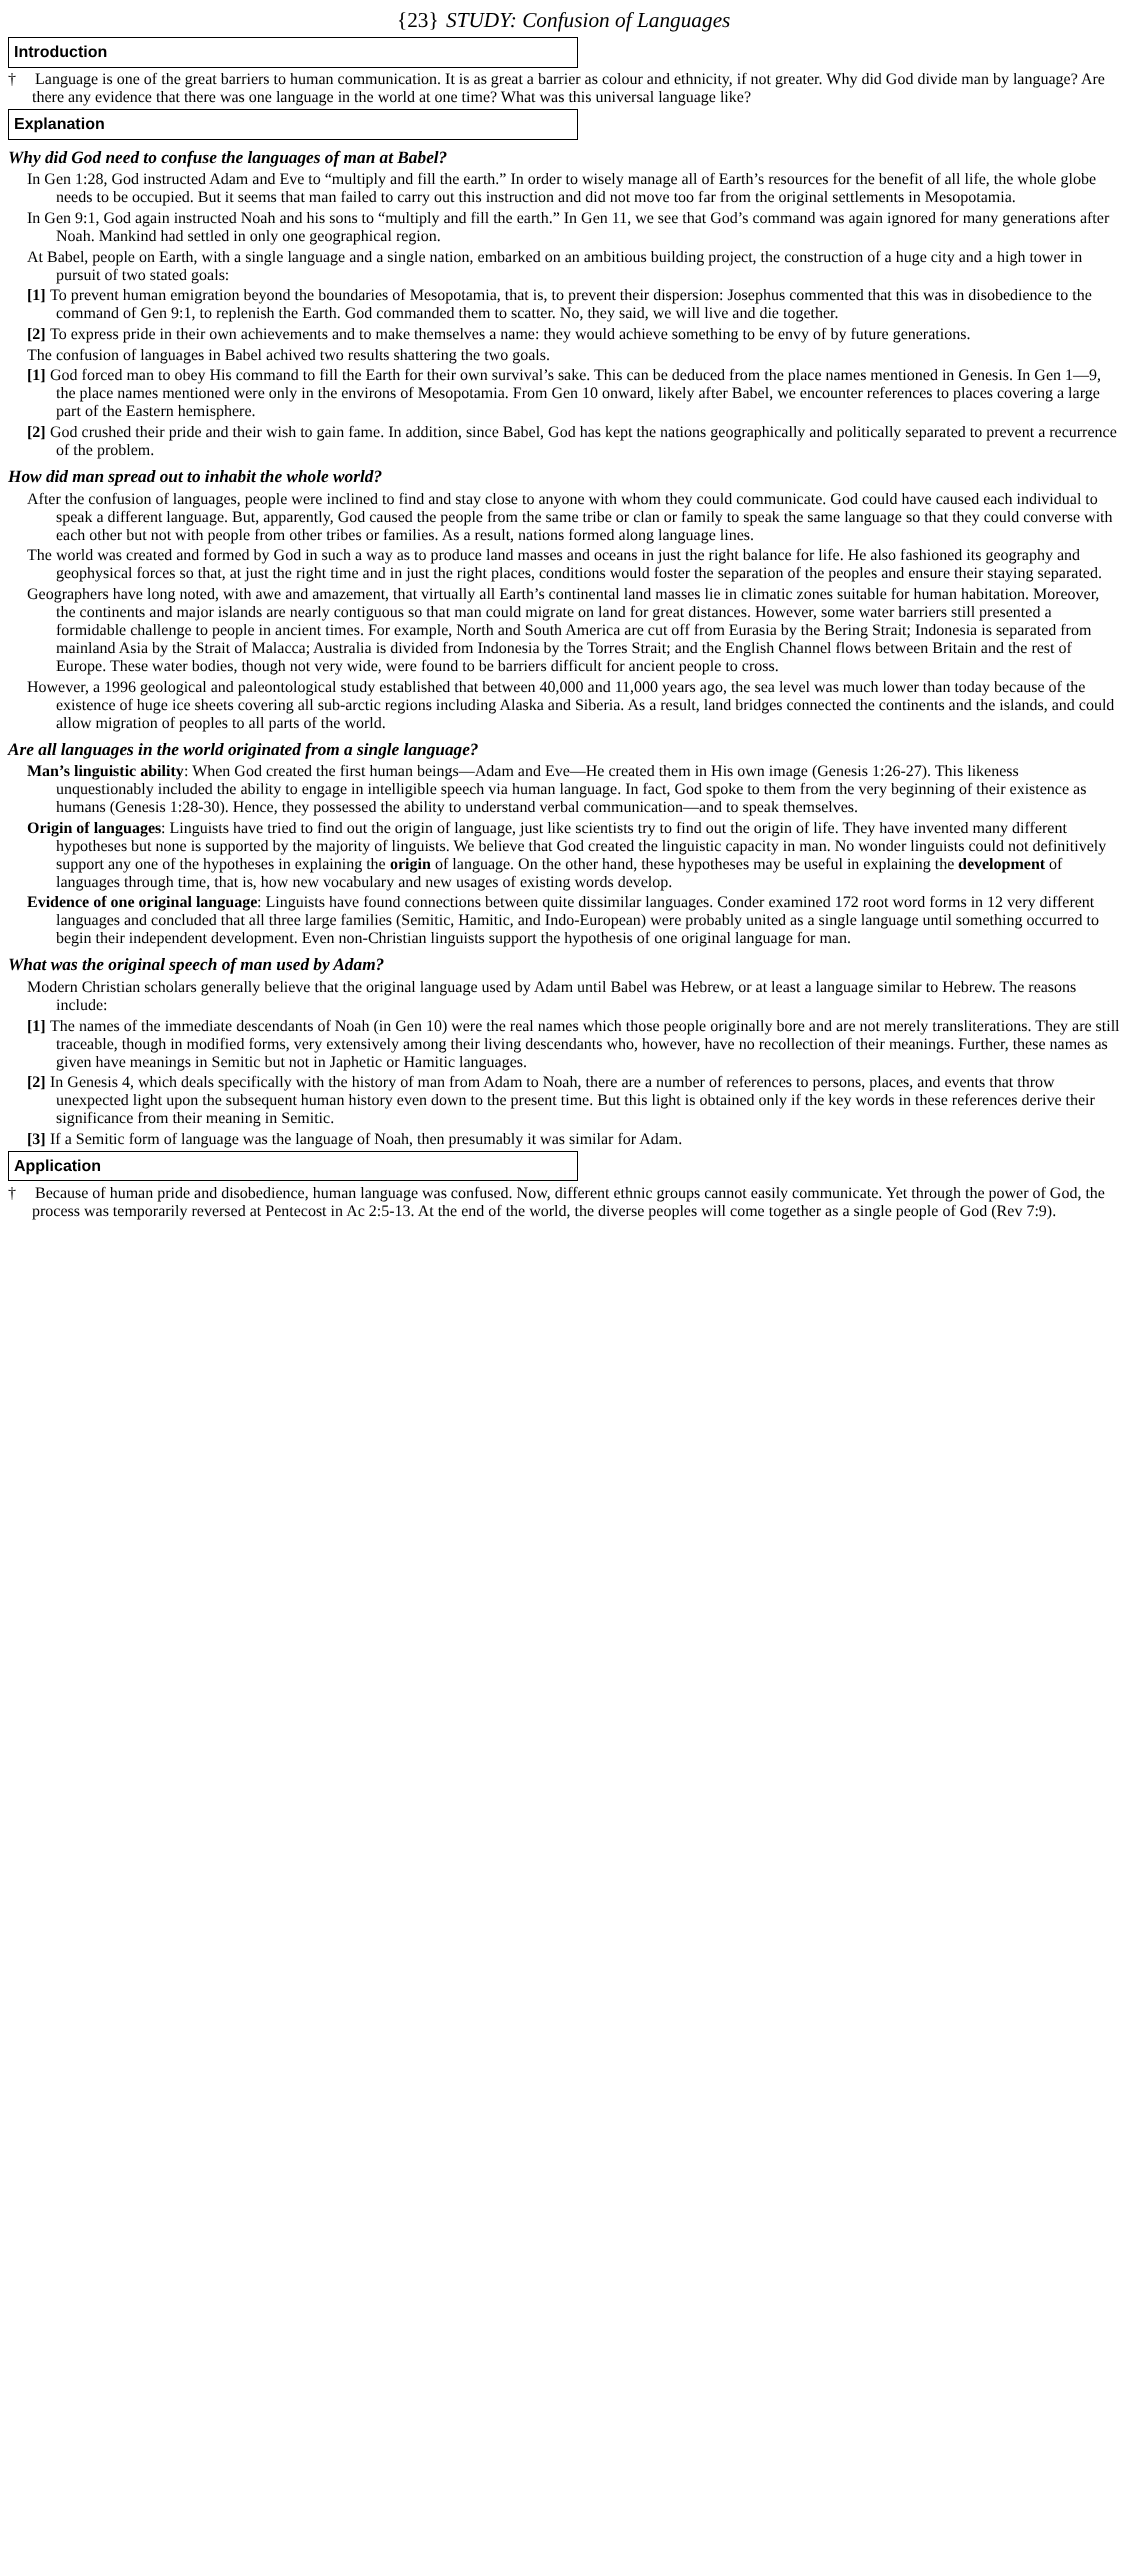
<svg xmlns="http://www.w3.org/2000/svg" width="1128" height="2564">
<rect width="100%" height="100%" fill="#fff"/>
<text x="397" y="27" style="font-family:Liberation Serif;font-size:21.3px;fill:#000">{23}</text>
<text x="446" y="27" style="font-family:Liberation Serif;font-size:21.3px;font-style:italic;fill:#000">STUDY: Confusion of Languages</text>
<rect x="8.5" y="37.5" width="569" height="30" fill="none" stroke="#000"/>
<text x="14" y="57" style="font-family:Liberation Sans;font-size:16px;font-weight:bold;fill:#000">Introduction</text>
<text x="8" y="84" style="font-family:Liberation Serif;font-size:16px;fill:#000">†</text>
<text x="35" y="84" style="font-family:Liberation Serif;font-size:16px;fill:#000">Language is one of the great barriers to human communication. It is as great a barrier as colour and ethnicity, if not greater. Why did God divide man by language? Are</text>
<text x="32" y="102" style="font-family:Liberation Serif;font-size:16px;fill:#000">there any evidence that there was one language in the world at one time? What was this universal language like?</text>
<rect x="8.5" y="109.5" width="569" height="30" fill="none" stroke="#000"/>
<text x="14" y="129" style="font-family:Liberation Sans;font-size:16px;font-weight:bold;fill:#000">Explanation</text>
<text x="8" y="163" style="font-family:Liberation Serif;font-size:17.3px;font-weight:bold;font-style:italic;fill:#000">Why did God need to confuse the languages of man at Babel?</text>
<text x="27" y="184" style="font-family:Liberation Serif;font-size:16px;fill:#000">In Gen 1:28, God instructed Adam and Eve to “multiply and fill the earth.” In order to wisely manage all of Earth’s resources for the benefit of all life, the whole globe</text>
<text x="56" y="202" style="font-family:Liberation Serif;font-size:16px;fill:#000">needs to be occupied. But it seems that man failed to carry out this instruction and did not move too far from the original settlements in Mesopotamia.</text>
<text x="27" y="223" style="font-family:Liberation Serif;font-size:16px;fill:#000">In Gen 9:1, God again instructed Noah and his sons to “multiply and fill the earth.” In Gen 11, we see that God’s command was again ignored for many generations after</text>
<text x="56" y="241" style="font-family:Liberation Serif;font-size:16px;fill:#000">Noah. Mankind had settled in only one geographical region.</text>
<text x="27" y="262" style="font-family:Liberation Serif;font-size:16px;fill:#000">At Babel, people on Earth, with a single language and a single nation, embarked on an ambitious building project, the construction of a huge city and a high tower in</text>
<text x="56" y="280" style="font-family:Liberation Serif;font-size:16px;fill:#000">pursuit of two stated goals:</text>
<text x="27" y="300" style="font-family:Liberation Serif;font-size:16px;font-weight:bold;fill:#000">[1]</text>
<text x="50" y="300" style="font-family:Liberation Serif;font-size:16px;fill:#000">To prevent human emigration beyond the boundaries of Mesopotamia, that is, to prevent their dispersion: Josephus commented that this was in disobedience to the</text>
<text x="56" y="318" style="font-family:Liberation Serif;font-size:16px;fill:#000">command of Gen 9:1, to replenish the Earth. God commanded them to scatter. No, they said, we will live and die together.</text>
<text x="27" y="339" style="font-family:Liberation Serif;font-size:16px;font-weight:bold;fill:#000">[2]</text>
<text x="50" y="339" style="font-family:Liberation Serif;font-size:16px;fill:#000">To express pride in their own achievements and to make themselves a name: they would achieve something to be envy of by future generations.</text>
<text x="27" y="360" style="font-family:Liberation Serif;font-size:16px;fill:#000">The confusion of languages in Babel achived two results shattering the two goals.</text>
<text x="27" y="380" style="font-family:Liberation Serif;font-size:16px;font-weight:bold;fill:#000">[1]</text>
<text x="50" y="380" style="font-family:Liberation Serif;font-size:16px;fill:#000">God forced man to obey His command to fill the Earth for their own survival’s sake. This can be deduced from the place names mentioned in Genesis. In Gen 1—9,</text>
<text x="56" y="398" style="font-family:Liberation Serif;font-size:16px;fill:#000">the place names mentioned were only in the environs of Mesopotamia. From Gen 10 onward, likely after Babel, we encounter references to places covering a large</text>
<text x="56" y="416" style="font-family:Liberation Serif;font-size:16px;fill:#000">part of the Eastern hemisphere.</text>
<text x="27" y="437" style="font-family:Liberation Serif;font-size:16px;font-weight:bold;fill:#000">[2]</text>
<text x="50" y="437" style="font-family:Liberation Serif;font-size:16px;fill:#000">God crushed their pride and their wish to gain fame. In addition, since Babel, God has kept the nations geographically and politically separated to prevent a recurrence</text>
<text x="56" y="455" style="font-family:Liberation Serif;font-size:16px;fill:#000">of the problem.</text>
<text x="8" y="482" style="font-family:Liberation Serif;font-size:17.3px;font-weight:bold;font-style:italic;fill:#000">How did man spread out to inhabit the whole world?</text>
<text x="27" y="504" style="font-family:Liberation Serif;font-size:16px;fill:#000">After the confusion of languages, people were inclined to find and stay close to anyone with whom they could communicate. God could have caused each individual to</text>
<text x="56" y="522" style="font-family:Liberation Serif;font-size:16px;fill:#000">speak a different language. But, apparently, God caused the people from the same tribe or clan or family to speak the same language so that they could converse with</text>
<text x="56" y="540" style="font-family:Liberation Serif;font-size:16px;fill:#000">each other but not with people from other tribes or families. As a result, nations formed along language lines.</text>
<text x="27" y="560" style="font-family:Liberation Serif;font-size:16px;fill:#000">The world was created and formed by God in such a way as to produce land masses and oceans in just the right balance for life. He also fashioned its geography and</text>
<text x="56" y="578" style="font-family:Liberation Serif;font-size:16px;fill:#000">geophysical forces so that, at just the right time and in just the right places, conditions would foster the separation of the peoples and ensure their staying separated.</text>
<text x="27" y="599" style="font-family:Liberation Serif;font-size:16px;fill:#000">Geographers have long noted, with awe and amazement, that virtually all Earth’s continental land masses lie in climatic zones suitable for human habitation. Moreover,</text>
<text x="56" y="617" style="font-family:Liberation Serif;font-size:16px;fill:#000">the continents and major islands are nearly contiguous so that man could migrate on land for great distances. However, some water barriers still presented a</text>
<text x="56" y="635" style="font-family:Liberation Serif;font-size:16px;fill:#000">formidable challenge to people in ancient times. For example, North and South America are cut off from Eurasia by the Bering Strait; Indonesia is separated from</text>
<text x="56" y="653" style="font-family:Liberation Serif;font-size:16px;fill:#000">mainland Asia by the Strait of Malacca;</text>
<text x="313" y="653" style="font-family:Liberation Serif;font-size:16px;fill:#000">Australia is divided from Indonesia by the Torres Strait; and the English Channel flows between Britain and the rest of</text>
<text x="56" y="671" style="font-family:Liberation Serif;font-size:16px;fill:#000">Europe. These water bodies, though not very wide, were found to be barriers difficult for ancient people to cross.</text>
<text x="27" y="692" style="font-family:Liberation Serif;font-size:16px;fill:#000">However, a 1996 geological and paleontological study established that between 40,000 and 11,000 years ago, the sea level was much lower than today because of the</text>
<text x="56" y="710" style="font-family:Liberation Serif;font-size:16px;fill:#000">existence of huge ice sheets covering all sub-arctic regions including Alaska and Siberia. As a result, land bridges connected the continents and the islands, and could</text>
<text x="56" y="728" style="font-family:Liberation Serif;font-size:16px;fill:#000">allow migration of peoples to all parts of the world.</text>
<text x="8" y="755" style="font-family:Liberation Serif;font-size:17.3px;font-weight:bold;font-style:italic;fill:#000">Are all languages in the world originated from a single language?</text>
<text x="27" y="776" style="font-family:Liberation Serif;font-size:16px;font-weight:bold;fill:#000">Man’s linguistic ability</text>
<text x="184" y="776" style="font-family:Liberation Serif;font-size:16px;fill:#000">: When God created the first human beings—Adam and Eve—He created them in His own image (Genesis 1:26-27). This likeness</text>
<text x="56" y="794" style="font-family:Liberation Serif;font-size:16px;fill:#000">unquestionably included the ability to engage in intelligible speech via human language. In fact, God spoke to them from the very beginning of their existence as</text>
<text x="56" y="812" style="font-family:Liberation Serif;font-size:16px;fill:#000">humans (Genesis 1:28-30). Hence, they possessed the ability to understand verbal communication—and to speak themselves.</text>
<text x="27" y="833" style="font-family:Liberation Serif;font-size:16px;font-weight:bold;fill:#000">Origin of languages</text>
<text x="161" y="833" style="font-family:Liberation Serif;font-size:16px;fill:#000">: Linguists have tried to find out the origin of language, just like scientists try to find out the origin of life. They have invented many different</text>
<text x="56" y="851" style="font-family:Liberation Serif;font-size:16px;fill:#000">hypotheses but none is supported by the majority of linguists. We believe that God created the linguistic capacity in man. No wonder linguists could not definitively</text>
<text x="56" y="869" style="font-family:Liberation Serif;font-size:16px;fill:#000">support any one of the hypotheses in explaining the</text>
<text x="390" y="869" style="font-family:Liberation Serif;font-size:16px;font-weight:bold;fill:#000">origin</text>
<text x="435" y="869" style="font-family:Liberation Serif;font-size:16px;fill:#000">of language. On the other hand, these hypotheses may be useful in explaining the</text>
<text x="958" y="869" style="font-family:Liberation Serif;font-size:16px;font-weight:bold;fill:#000">development</text>
<text x="1049" y="869" style="font-family:Liberation Serif;font-size:16px;fill:#000">of</text>
<text x="56" y="887" style="font-family:Liberation Serif;font-size:16px;fill:#000">languages through time, that is, how new vocabulary and new usages of existing words develop.</text>
<text x="27" y="907" style="font-family:Liberation Serif;font-size:16px;font-weight:bold;fill:#000">Evidence of one original language</text>
<text x="257" y="907" style="font-family:Liberation Serif;font-size:16px;fill:#000">: Linguists have found connections between quite dissimilar languages. Conder examined 172 root word forms in 12 very different</text>
<text x="56" y="925" style="font-family:Liberation Serif;font-size:16px;fill:#000">languages and concluded that all three large families (Semitic, Hamitic, and Indo-European) were probably united as a single language until something occurred to</text>
<text x="56" y="943" style="font-family:Liberation Serif;font-size:16px;fill:#000">begin their independent development. Even non-Christian linguists support the hypothesis of one original language for man.</text>
<text x="8" y="970" style="font-family:Liberation Serif;font-size:17.3px;font-weight:bold;font-style:italic;fill:#000">What was the original speech of man used by Adam?</text>
<text x="27" y="992" style="font-family:Liberation Serif;font-size:16px;fill:#000">Modern Christian scholars generally believe that the original language used by Adam until Babel was Hebrew, or at least a language similar to Hebrew. The reasons</text>
<text x="56" y="1010" style="font-family:Liberation Serif;font-size:16px;fill:#000">include:</text>
<text x="27" y="1031" style="font-family:Liberation Serif;font-size:16px;font-weight:bold;fill:#000">[1]</text>
<text x="50" y="1031" style="font-family:Liberation Serif;font-size:16px;fill:#000">The names of the immediate descendants of Noah (in Gen 10) were the real names which those people originally bore and are not merely transliterations. They are still</text>
<text x="56" y="1049" style="font-family:Liberation Serif;font-size:16px;fill:#000">traceable, though in modified forms, very extensively among their living descendants who, however, have no recollection of their meanings. Further, these names as</text>
<text x="56" y="1067" style="font-family:Liberation Serif;font-size:16px;fill:#000">given have meanings in Semitic but not in Japhetic or Hamitic languages.</text>
<text x="27" y="1087" style="font-family:Liberation Serif;font-size:16px;font-weight:bold;fill:#000">[2]</text>
<text x="50" y="1087" style="font-family:Liberation Serif;font-size:16px;fill:#000">In Genesis 4, which deals specifically with the history of man from Adam to Noah, there are a number of references to persons, places, and events that throw</text>
<text x="56" y="1105" style="font-family:Liberation Serif;font-size:16px;fill:#000">unexpected light upon the subsequent human history even down to the present time. But this light is obtained only if the key words in these references derive their</text>
<text x="56" y="1123" style="font-family:Liberation Serif;font-size:16px;fill:#000">significance from their meaning in Semitic.</text>
<text x="27" y="1144" style="font-family:Liberation Serif;font-size:16px;font-weight:bold;fill:#000">[3]</text>
<text x="50" y="1144" style="font-family:Liberation Serif;font-size:16px;fill:#000">If a Semitic form of language was the language of Noah, then presumably it was similar for Adam.</text>
<rect x="8.5" y="1151.5" width="569" height="29" fill="none" stroke="#000"/>
<text x="14" y="1171" style="font-family:Liberation Sans;font-size:16px;font-weight:bold;fill:#000">Application</text>
<text x="8" y="1198" style="font-family:Liberation Serif;font-size:16px;fill:#000">†</text>
<text x="35" y="1198" style="font-family:Liberation Serif;font-size:16px;fill:#000">Because of human pride and disobedience, human language was confused. Now, different ethnic groups cannot easily communicate. Yet through the power of God, the</text>
<text x="32" y="1216" style="font-family:Liberation Serif;font-size:16px;fill:#000">process was temporarily reversed at Pentecost in Ac 2:5-13. At the end of the world, the diverse peoples will come together as a single people of God (Rev 7:9).</text>
</svg>
